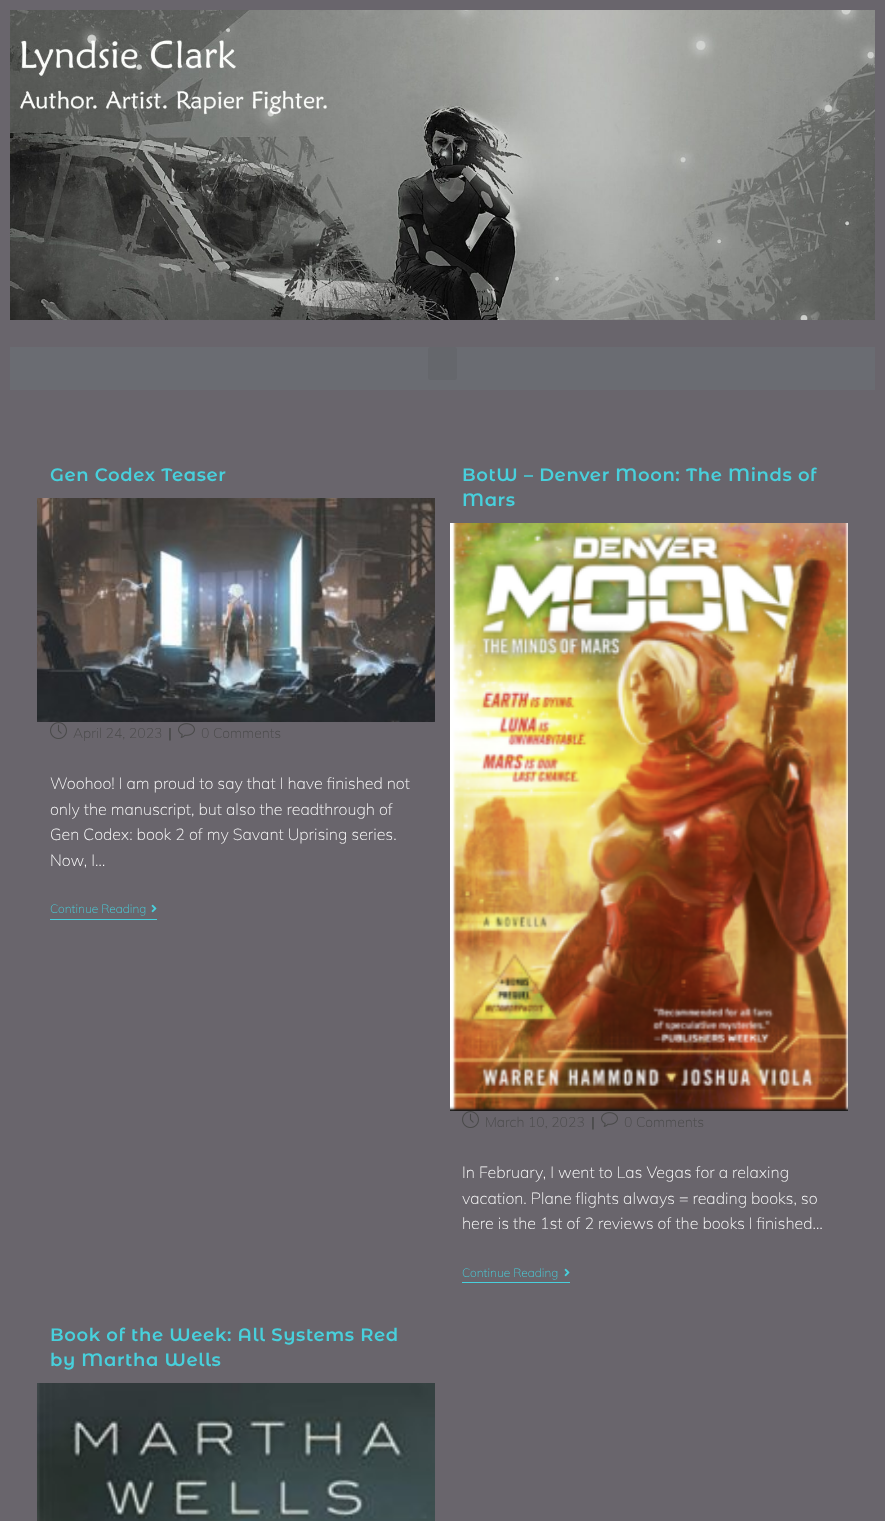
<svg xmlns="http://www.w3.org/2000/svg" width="885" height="1521">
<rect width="100%" height="100%" fill="#69656c"/>
<image x="10" y="10" width="865" height="310" href="media/1.png"/>
<rect x="10" y="347" width="865" height="43" fill="#6a6c72"/>
<rect x="428" y="347" width="29" height="33" rx="3" fill="#65676c"/>
<text x="50" y="481" style="font-family:Montserrat Alternates;font-size:18px;font-weight:600;letter-spacing:0.6px;fill:#48d0dc">Gen Codex Teaser</text>
<image x="37" y="498" width="398" height="224" href="media/2.png"/>
<image x="50" y="722" width="17" height="17" href="media/3.png"/>
<text x="73" y="738" style="font-family:Muli;font-size:14px;font-weight:200;fill:#4a4a4a">April 24, 2023</text>
<text x="168" y="738" style="font-family:Muli;font-size:14px;font-weight:bold;fill:#4a4a4a">|</text>
<image x="178" y="723" width="17" height="15" href="media/4.png"/>
<text x="201" y="738" style="font-family:Muli;font-size:14px;font-weight:200;fill:#4a4a4a">0 Comments</text>
<text x="50" y="789" style="font-family:Muli;font-size:16px;font-weight:200;fill:#fff">Woohoo! I am proud to say that I have finished not</text>
<text x="50" y="815" style="font-family:Muli;font-size:16px;font-weight:200;fill:#fff">only the manuscript, but also the readthrough of</text>
<text x="50" y="840" style="font-family:Muli;font-size:16px;font-weight:200;fill:#fff">Gen Codex: book 2 of my Savant Uprising series.</text>
<text x="50" y="866" style="font-family:Muli;font-size:16px;font-weight:200;fill:#fff">Now, I…</text>
<rect x="50" y="919" width="107" height="1" fill="#48d0dc"/>
<text x="50" y="913" style="font-family:Muli;font-size:12px;font-weight:200;fill:#48d0dc">Continue Reading</text>
<image x="151" y="904" width="6" height="9" href="media/5.png"/>
<text x="462" y="481" style="font-family:Montserrat Alternates;font-size:18px;font-weight:600;letter-spacing:0.6px;fill:#48d0dc">BotW – Denver Moon: The Minds of</text>
<text x="462" y="506" style="font-family:Montserrat Alternates;font-size:18px;font-weight:600;letter-spacing:0.6px;fill:#48d0dc">Mars</text>
<image x="450" y="523" width="398" height="588" href="media/6.png"/>
<image x="462" y="1111" width="17" height="17" href="media/3.png"/>
<text x="485" y="1127" style="font-family:Muli;font-size:14px;font-weight:200;fill:#4a4a4a">March 10, 2023</text>
<text x="591" y="1127" style="font-family:Muli;font-size:14px;font-weight:bold;fill:#4a4a4a">|</text>
<image x="601" y="1112" width="17" height="15" href="media/4.png"/>
<text x="624" y="1127" style="font-family:Muli;font-size:14px;font-weight:200;fill:#4a4a4a">0 Comments</text>
<text x="462" y="1178" style="font-family:Muli;font-size:16px;font-weight:200;fill:#fff">In February, I went to Las Vegas for a relaxing</text>
<text x="462" y="1204" style="font-family:Muli;font-size:16px;font-weight:200;fill:#fff">vacation. Plane flights always = reading books, so</text>
<text x="462" y="1229" style="font-family:Muli;font-size:16px;font-weight:200;fill:#fff">here is the 1st of 2 reviews of the books I finished…</text>
<rect x="462" y="1282" width="108" height="1" fill="#48d0dc"/>
<text x="462" y="1277" style="font-family:Muli;font-size:12px;font-weight:200;fill:#48d0dc">Continue Reading</text>
<image x="564" y="1268" width="6" height="9" href="media/5.png"/>
<text x="50" y="1341" style="font-family:Montserrat Alternates;font-size:18px;font-weight:600;letter-spacing:0.6px;fill:#48d0dc">Book of the Week: All Systems Red</text>
<text x="50" y="1366" style="font-family:Montserrat Alternates;font-size:18px;font-weight:600;letter-spacing:0.6px;fill:#48d0dc">by Martha Wells</text>
<image x="37" y="1383" width="398" height="138" href="media/7.png"/>
</svg>
